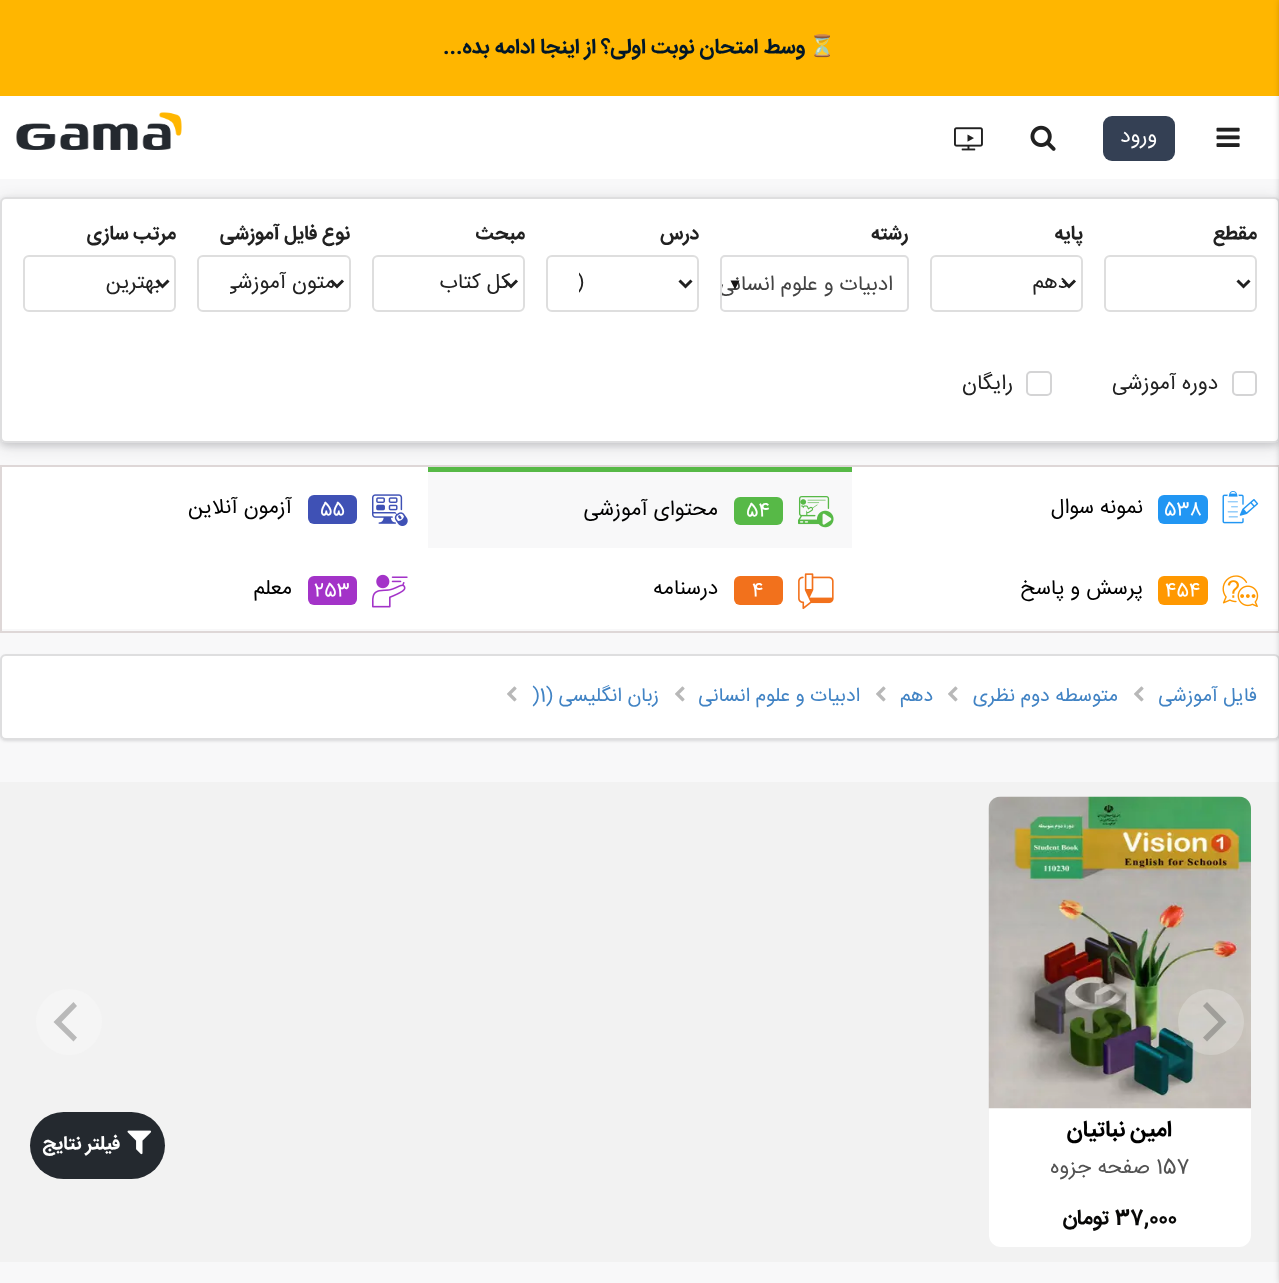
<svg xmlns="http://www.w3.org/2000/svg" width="1279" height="1283">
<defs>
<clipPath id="clip1"><rect x="722" y="257" width="186" height="57"/></clipPath>
<clipPath id="clip2"><rect x="579" y="264" width="105" height="39"/></clipPath>
<clipPath id="clip3"><rect x="230" y="264" width="106" height="39"/></clipPath>
</defs>
<rect width="100%" height="100%" fill="#f8f8f9"/>
<rect width="1279" height="96" fill="#ffb600"/>
<text x="836" y="53" style="font-family:Noto Color Emoji;font-size:21px;font-weight:bold;direction:rtl;fill:#011728">⏳</text>
<text x="805" y="53" style="font-family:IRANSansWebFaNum;font-size:21px;font-weight:bold;direction:rtl;fill:#011728">وسط امتحان نوبت اولی؟ از اینجا ادامه بده...</text>
<rect y="96" width="1279" height="83" fill="#fff"/>
<rect x="1" y="466" width="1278" height="166" fill="none" stroke="#ded7d7" stroke-width="2"/>
<rect x="852" y="467" width="426" height="162" fill="#fff"/>
<rect x="428" y="467" width="424" height="5" fill="#57b947"/>
<rect x="2" y="467" width="426" height="81" fill="#fff"/>
<rect y="200" width="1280" height="246" rx="6" fill="#22242626" filter="blur(7.5px)"/>
<rect y="200" width="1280" height="246" rx="6" fill="#2224261f" filter="blur(3px)"/>
<rect y="197" width="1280" height="246" rx="6" fill="#fff"/>
<rect x="1" y="198" width="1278" height="244" rx="5" fill="none" stroke="#22242626" stroke-width="2"/>
<rect y="656" width="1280" height="85" rx="6" fill="#22242626" filter="blur(1.5px)"/>
<rect y="654" width="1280" height="86" rx="6" fill="#fff"/>
<rect x="1" y="655" width="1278" height="84" rx="5" fill="none" stroke="#22242626" stroke-width="2"/>
<rect y="782" width="1279" height="480" fill="#f2f2f2"/>
<rect x="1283" width="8" height="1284" fill="#00000080" filter="blur(4px)"/>
<image x="1216" y="127" width="24" height="20" href="media/1.png"/>
<rect x="1103" y="116" width="72" height="45" rx="9" fill="#344054"/>
<text x="1157" y="142" style="font-family:IRANSansWebFaNum;font-size:21px;direction:rtl;fill:#fff">ورود</text>
<image x="1030" y="125" width="26" height="26" href="media/2.png"/>
<image x="954" y="127" width="29" height="24" href="media/3.png"/>
<image x="967" y="134" width="7" height="8" href="media/4.png"/>
<image x="16" y="112" width="166" height="38" href="media/5.png"/>
<text x="1257" y="239" style="font-family:IRANSansWebFaNum;font-size:19.5px;font-weight:bold;direction:rtl;fill:#212121">مقطع</text>
<rect x="1105" y="256" width="151" height="55" rx="5" fill="none" stroke="#dedede" stroke-width="2"/>
<path d="M1237.5 280.5l6 6l6-6" fill="none" stroke="#212121" stroke-width="3"/>
<text x="1083" y="239" style="font-family:IRANSansWebFaNum;font-size:19.5px;font-weight:bold;direction:rtl;fill:#212121">پایه</text>
<rect x="931" y="256" width="151" height="55" rx="5" fill="none" stroke="#dedede" stroke-width="2"/>
<path d="M1063 280.5l6 6l6-6" fill="none" stroke="#212121" stroke-width="3"/>
<text x="1068" y="288" style="font-family:IRANSansWebFaNum;font-size:21px;direction:rtl;fill:#212121">دهم</text>
<text x="908" y="239" style="font-family:IRANSansWebFaNum;font-size:19.5px;font-weight:bold;direction:rtl;fill:#212121">رشته</text>
<rect x="721" y="256" width="187" height="55" rx="4" fill="none" stroke="#dededf" stroke-width="2"/>
<g clip-path="url(#clip1)">
<text x="893" y="290" style="font-family:IRANSansWebFaNum;font-size:21px;direction:rtl;fill:#444">ادبیات و علوم انسانی</text>
</g>
<path d="M730.5 280.5h9l-4.5 9z" fill="#151414"/>
<text x="699" y="239" style="font-family:IRANSansWebFaNum;font-size:19.5px;font-weight:bold;direction:rtl;fill:#212121">درس</text>
<rect x="547" y="256" width="151" height="55" rx="5" fill="none" stroke="#dedede" stroke-width="2"/>
<path d="M679.5 280.5l6 6l6-6" fill="none" stroke="#212121" stroke-width="3"/>
<g clip-path="url(#clip2)">
<text x="576" y="288" style="font-family:IRANSansWebFaNum;font-size:21px;fill:#212121">)</text>
</g>
<text x="525" y="239" style="font-family:IRANSansWebFaNum;font-size:19.5px;font-weight:bold;direction:rtl;fill:#212121">مبحث</text>
<rect x="373" y="256" width="151" height="55" rx="5" fill="none" stroke="#dedede" stroke-width="2"/>
<path d="M505 280.5l6 6l6-6" fill="none" stroke="#212121" stroke-width="3"/>
<text x="510" y="288" style="font-family:IRANSansWebFaNum;font-size:21px;direction:rtl;fill:#212121">کل کتاب</text>
<text x="350" y="239" style="font-family:IRANSansWebFaNum;font-size:19.5px;font-weight:bold;direction:rtl;fill:#212121">نوع فایل آموزشی</text>
<rect x="198" y="256" width="152" height="55" rx="5" fill="none" stroke="#dedede" stroke-width="2"/>
<path d="M331 280.5l6 6l6-6" fill="none" stroke="#212121" stroke-width="3"/>
<g clip-path="url(#clip3)">
<text x="335" y="288" style="font-family:IRANSansWebFaNum;font-size:21px;direction:rtl;fill:#212121">متون آموزشی</text>
</g>
<text x="176" y="239" style="font-family:IRANSansWebFaNum;font-size:19.5px;font-weight:bold;direction:rtl;fill:#212121">مرتب سازی</text>
<rect x="24" y="256" width="151" height="55" rx="5" fill="none" stroke="#dedede" stroke-width="2"/>
<path d="M156.5 280.5l6 6l6-6" fill="none" stroke="#212121" stroke-width="3"/>
<text x="161" y="288" style="font-family:IRANSansWebFaNum;font-size:21px;direction:rtl;fill:#212121">بهترین</text>
<rect x="1233" y="372" width="23" height="23" rx="4" fill="none" stroke="#d4d4d5" stroke-width="2"/>
<text x="1218" y="389" style="font-family:IRANSansWebFaNum;font-size:21px;direction:rtl;fill:#212121">دوره آموزشی</text>
<rect x="1027" y="372" width="24" height="23" rx="4" fill="none" stroke="#d4d4d5" stroke-width="2"/>
<text x="1013" y="389" style="font-family:IRANSansWebFaNum;font-size:21px;direction:rtl;fill:#212121">رایگان</text>
<image x="1222" y="491" width="37" height="33" href="media/6.png"/>
<rect x="1158" y="495" width="50" height="29" rx="6" fill="#2196f3"/>
<text x="1164" y="515" style="font-family:IRANSansWebFaNum;font-size:19px;fill:#fff">538</text>
<text x="1143" y="513" style="font-family:IRANSansWebFaNum;font-size:21px;direction:rtl;fill:#000">نمونه سوال</text>
<image x="798" y="496" width="36" height="32" href="media/7.png"/>
<rect x="734" y="497" width="49" height="28" rx="6" fill="#57b947"/>
<text x="746" y="516" style="font-family:IRANSansWebFaNum;font-size:19px;fill:#fff">54</text>
<text x="718" y="515" style="font-family:IRANSansWebFaNum;font-size:21px;direction:rtl;fill:#000">محتوای آموزشی</text>
<image x="372" y="494" width="36" height="32" href="media/8.png"/>
<rect x="308" y="495" width="49" height="29" rx="6" fill="#3f51b5"/>
<text x="320" y="515" style="font-family:IRANSansWebFaNum;font-size:19px;fill:#fff">55</text>
<text x="292" y="513" style="font-family:IRANSansWebFaNum;font-size:21px;direction:rtl;fill:#000">آزمون آنلاین</text>
<image x="1222" y="575" width="37" height="32" href="media/9.png"/>
<rect x="1158" y="576" width="50" height="29" rx="6" fill="#ff9800"/>
<text x="1165" y="596" style="font-family:IRANSansWebFaNum;font-size:19px;fill:#fff">454</text>
<text x="1143" y="594" style="font-family:IRANSansWebFaNum;font-size:21px;direction:rtl;fill:#000">پرسش و پاسخ</text>
<rect x="2" y="548" width="850" height="81" fill="#fff"/>
<image x="798" y="573" width="36" height="37" href="media/10.png"/>
<rect x="734" y="576" width="49" height="29" rx="6" fill="#f2711c"/>
<text x="752" y="596" style="font-family:IRANSansWebFaNum;font-size:19px;fill:#fff">4</text>
<text x="718" y="594" style="font-family:IRANSansWebFaNum;font-size:21px;direction:rtl;fill:#000">درسنامه</text>
<image x="372" y="574" width="36" height="34" href="media/11.png"/>
<rect x="308" y="576" width="49" height="29" rx="6" fill="#a333c8"/>
<text x="314" y="596" style="font-family:IRANSansWebFaNum;font-size:19px;fill:#fff">253</text>
<text x="292" y="594" style="font-family:IRANSansWebFaNum;font-size:21px;direction:rtl;fill:#000">معلم</text>
<text x="1257" y="701" style="font-family:IRANSansWebFaNum;font-size:19.5px;direction:rtl;fill:#4183c4">فایل آموزشی</text>
<image x="1134" y="686" width="10" height="16" href="media/12.png"/>
<text x="1118" y="701" style="font-family:IRANSansWebFaNum;font-size:19.5px;direction:rtl;fill:#4183c4">متوسطه دوم نظری</text>
<image x="948" y="686" width="10" height="16" href="media/12.png"/>
<text x="933" y="701" style="font-family:IRANSansWebFaNum;font-size:19.5px;direction:rtl;fill:#4183c4">دهم</text>
<image x="876" y="686" width="10" height="16" href="media/12.png"/>
<text x="860" y="701" style="font-family:IRANSansWebFaNum;font-size:19.5px;direction:rtl;fill:#4183c4">ادبیات و علوم انسانی</text>
<image x="675" y="686" width="10" height="16" href="media/12.png"/>
<text x="659" y="701" style="font-family:IRANSansWebFaNum;font-size:19.5px;direction:rtl;fill:#4183c4">زبان انگلیسی (</text>
<text x="532" y="701" style="font-family:IRANSansWebFaNum;font-size:19.5px;fill:#4183c4">)1</text>
<image x="507" y="686" width="10" height="16" href="media/12.png"/>
<rect x="989" y="797" width="262" height="450" rx="12" fill="#fff"/>
<image x="988" y="796" width="263" height="313" href="media/13.png"/>
<circle cx="1211" cy="1022" r="33" fill="#ffffff38"/>
<path d="M1226.5 1022l-19.5-20l-4 4l15.5 16l-15.5 15.5l4 4z" fill="#3333334d"/>
<circle cx="69" cy="1022" r="33" fill="#f5f5f5"/>
<path d="M53.5 1022l20 19.5l3.5-4l-15.5-15.5l15.5-16l-3.5-4z" fill="#b9b9b9"/>
<text x="1172" y="1136" style="font-family:IRANSansWebFaNum;font-size:22.5px;font-weight:bold;direction:rtl;fill:#000">امین نباتیان</text>
<text x="1156" y="1173" style="font-family:IRANSansWebFaNum;font-size:21px;fill:#525252">157</text>
<text x="1150" y="1173" style="font-family:IRANSansWebFaNum;font-size:21px;direction:rtl;fill:#525252">صفحه</text>
<text x="1091" y="1173" style="font-family:IRANSansWebFaNum;font-size:21px;direction:rtl;fill:#525252">جزوه</text>
<text x="1115" y="1224" style="font-family:IRANSansWebFaNum;font-size:21px;font-weight:bold;fill:#080807">37,000</text>
<text x="1110" y="1224" style="font-family:IRANSansWebFaNum;font-size:21px;font-weight:bold;direction:rtl;fill:#080807">تومان</text>
<rect x="30" y="1112" width="135" height="67" rx="33.5" fill="#24292f"/>
<image x="127" y="1130" width="25" height="25" href="media/14.png"/>
<text x="120" y="1149" style="font-family:IRANSansWebFaNum;font-size:19px;font-weight:bold;direction:rtl;fill:#fff">فیلتر نتایج</text>
</svg>
